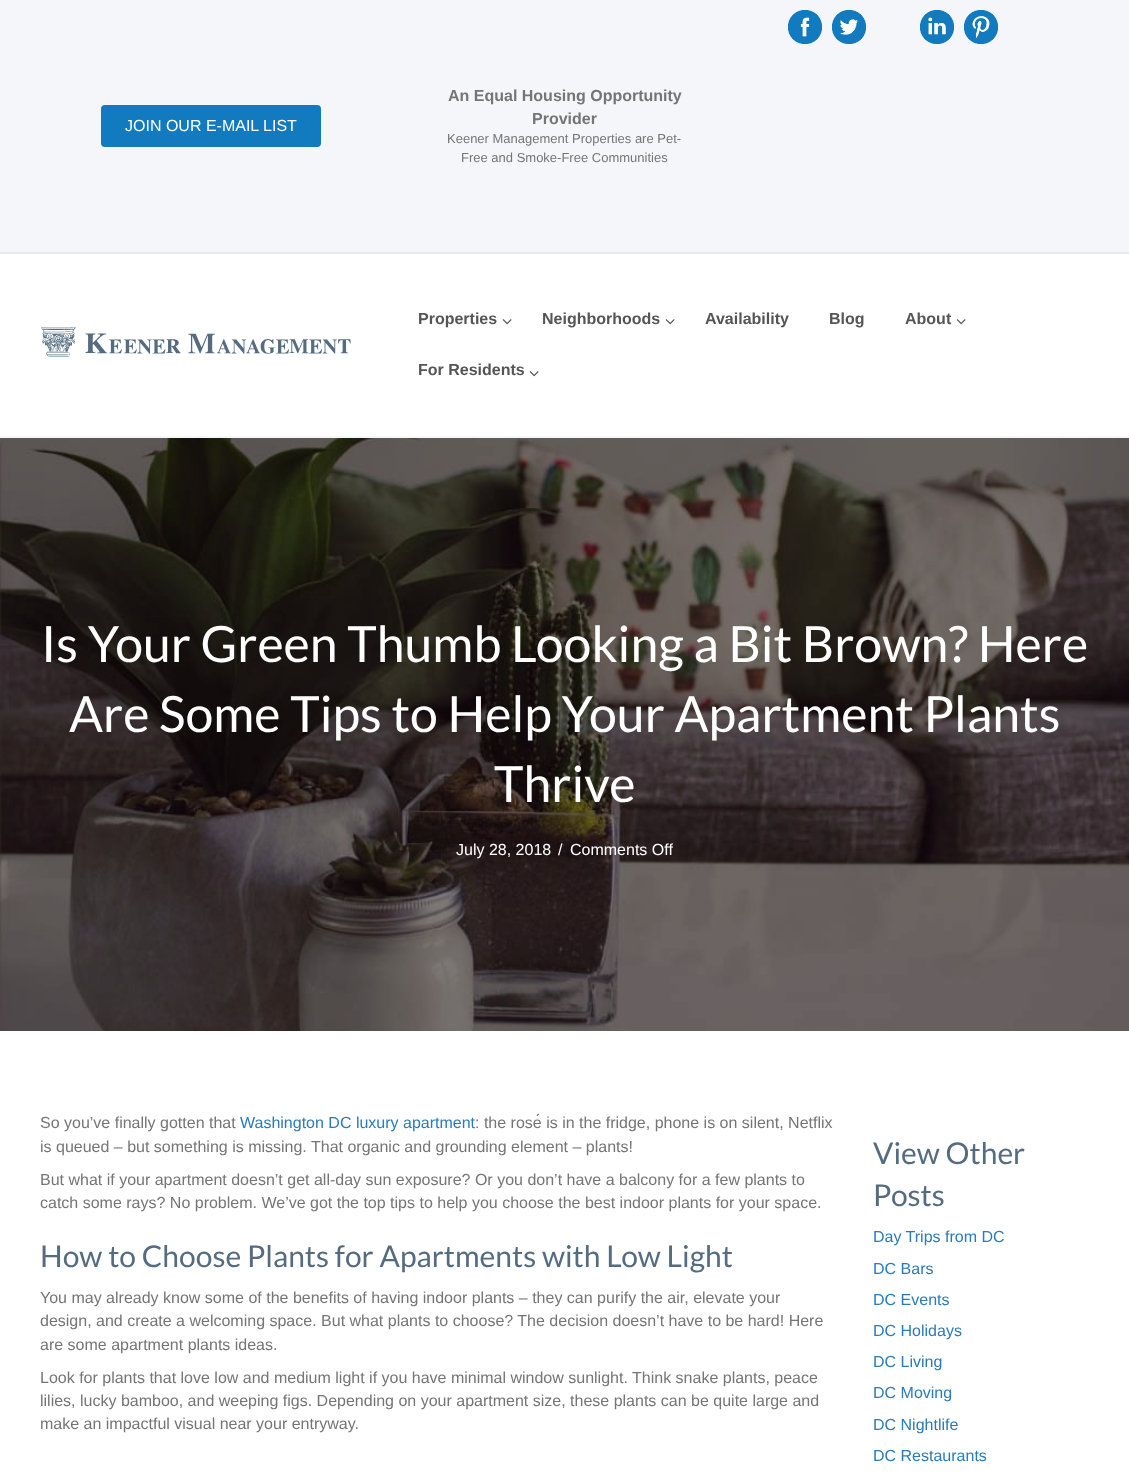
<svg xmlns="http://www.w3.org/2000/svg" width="1129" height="1476">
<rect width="100%" height="100%" fill="#fff"/>
<rect width="1129" height="252" fill="#f4f6f9"/>
<rect y="252" width="1129" height="2" fill="#e6e9ed"/>
<image x="788" y="10" width="34" height="34" href="media/1.png"/>
<image x="832" y="10" width="34" height="34" href="media/2.png"/>
<image x="920" y="10" width="34" height="34" href="media/3.png"/>
<image x="964" y="10" width="34" height="34" href="media/4.png"/>
<rect x="101" y="105" width="220" height="42" rx="4" fill="#127abe"/>
<text x="125" y="131" style="font-family:Liberation Sans;font-size:16px;fill:#fff">JOIN OUR E-MAIL LIST</text>
<text x="448" y="101" style="font-family:Liberation Sans;font-size:16px;font-weight:bold;fill:#757575">An Equal Housing Opportunity</text>
<text x="532" y="124" style="font-family:Liberation Sans;font-size:16px;font-weight:bold;fill:#757575">Provider</text>
<text x="447" y="143" style="font-family:Liberation Sans;font-size:13px;fill:#757575">Keener Management Properties are Pet-</text>
<text x="461" y="162" style="font-family:Liberation Sans;font-size:13px;fill:#757575">Free and Smoke-Free Communities</text>
<rect y="436" width="1129" height="2" fill="#f5f7fa"/>
<image x="41" y="327" width="310" height="30" href="media/5.png"/>
<text x="418" y="324" style="font-family:Liberation Sans;font-size:16px;font-weight:bold;fill:#555">Properties</text>
<image x="502" y="319" width="10" height="6" href="media/6.png"/>
<text x="542" y="324" style="font-family:Liberation Sans;font-size:16px;font-weight:bold;fill:#555">Neighborhoods</text>
<image x="665" y="319" width="10" height="6" href="media/6.png"/>
<text x="705" y="324" style="font-family:Liberation Sans;font-size:16px;font-weight:bold;fill:#555">Availability</text>
<text x="829" y="324" style="font-family:Liberation Sans;font-size:16px;font-weight:bold;fill:#555">Blog</text>
<text x="905" y="324" style="font-family:Liberation Sans;font-size:16px;font-weight:bold;fill:#555">About</text>
<image x="956" y="319" width="10" height="6" href="media/6.png"/>
<text x="418" y="375" style="font-family:Liberation Sans;font-size:16px;font-weight:bold;fill:#555">For Residents</text>
<image x="529" y="371" width="10" height="6" href="media/6.png"/>
<image x="0" y="438" width="1129" height="593" href="media/7.png"/>
<text x="41" y="662" style="font-family:Lato;font-size:50px;fill:#fff">Is Your Green Thumb Looking a Bit Brown? Here</text>
<text x="69" y="732" style="font-family:Lato;font-size:50px;fill:#fff">Are Some Tips to Help Your Apartment Plants</text>
<text x="494" y="802" style="font-family:Lato;font-size:50px;fill:#fff">Thrive</text>
<text x="456" y="855" style="font-family:Liberation Sans;font-size:16px;fill:#fff">July 28, 2018</text>
<text x="558" y="855" style="font-family:Liberation Sans;font-size:16px;fill:#fff">/</text>
<text x="570" y="855" style="font-family:Liberation Sans;font-size:16px;fill:#fff">Comments Off</text>
<text x="40" y="1128" style="font-family:Liberation Sans;font-size:16px;fill:#757575">So you’ve finally gotten that</text>
<text x="240" y="1128" style="font-family:Liberation Sans;font-size:16px;fill:#2b7bb9">Washington DC luxury apartment</text>
<text x="475" y="1128" style="font-family:Liberation Sans;font-size:16px;fill:#757575">: the rosé is in the fridge, phone is on silent, Netflix</text>
<text x="40" y="1152" style="font-family:Liberation Sans;font-size:16px;fill:#757575">is queued – but something is missing. That organic and grounding element – plants!</text>
<text x="40" y="1185" style="font-family:Liberation Sans;font-size:16px;fill:#757575">But what if your apartment doesn’t get all-day sun exposure? Or you don’t have a balcony for a few plants to</text>
<text x="40" y="1208" style="font-family:Liberation Sans;font-size:16px;fill:#757575">catch some rays? No problem. We’ve got the top tips to help you choose the best indoor plants for your space.</text>
<text x="40" y="1267" style="font-family:Lato;font-size:30px;fill:#556c80">How to Choose Plants for Apartments with Low Light</text>
<text x="40" y="1303" style="font-family:Liberation Sans;font-size:16px;fill:#757575">You may already know some of the benefits of having indoor plants – they can purify the air, elevate your</text>
<text x="40" y="1326" style="font-family:Liberation Sans;font-size:16px;fill:#757575">design, and create a welcoming space. But what plants to choose? The decision doesn’t have to be hard! Here</text>
<text x="40" y="1350" style="font-family:Liberation Sans;font-size:16px;fill:#757575">are some apartment plants ideas.</text>
<text x="40" y="1383" style="font-family:Liberation Sans;font-size:16px;fill:#757575">Look for plants that love low and medium light if you have minimal window sunlight. Think snake plants, peace</text>
<text x="40" y="1406" style="font-family:Liberation Sans;font-size:16px;fill:#757575">lilies, lucky bamboo, and weeping figs. Depending on your apartment size, these plants can be quite large and</text>
<text x="40" y="1429" style="font-family:Liberation Sans;font-size:16px;fill:#757575">make an impactful visual near your entryway.</text>
<text x="873" y="1164" style="font-family:Lato;font-size:30px;fill:#556c80">View Other</text>
<text x="873" y="1206" style="font-family:Lato;font-size:30px;fill:#556c80">Posts</text>
<text x="873" y="1242" style="font-family:Liberation Sans;font-size:16px;fill:#2b7bb9">Day Trips from DC</text>
<text x="873" y="1274" style="font-family:Liberation Sans;font-size:16px;fill:#2b7bb9">DC Bars</text>
<text x="873" y="1305" style="font-family:Liberation Sans;font-size:16px;fill:#2b7bb9">DC Events</text>
<text x="873" y="1336" style="font-family:Liberation Sans;font-size:16px;fill:#2b7bb9">DC Holidays</text>
<text x="873" y="1367" style="font-family:Liberation Sans;font-size:16px;fill:#2b7bb9">DC Living</text>
<text x="873" y="1398" style="font-family:Liberation Sans;font-size:16px;fill:#2b7bb9">DC Moving</text>
<text x="873" y="1430" style="font-family:Liberation Sans;font-size:16px;fill:#2b7bb9">DC Nightlife</text>
<text x="873" y="1461" style="font-family:Liberation Sans;font-size:16px;fill:#2b7bb9">DC Restaurants</text>
</svg>
